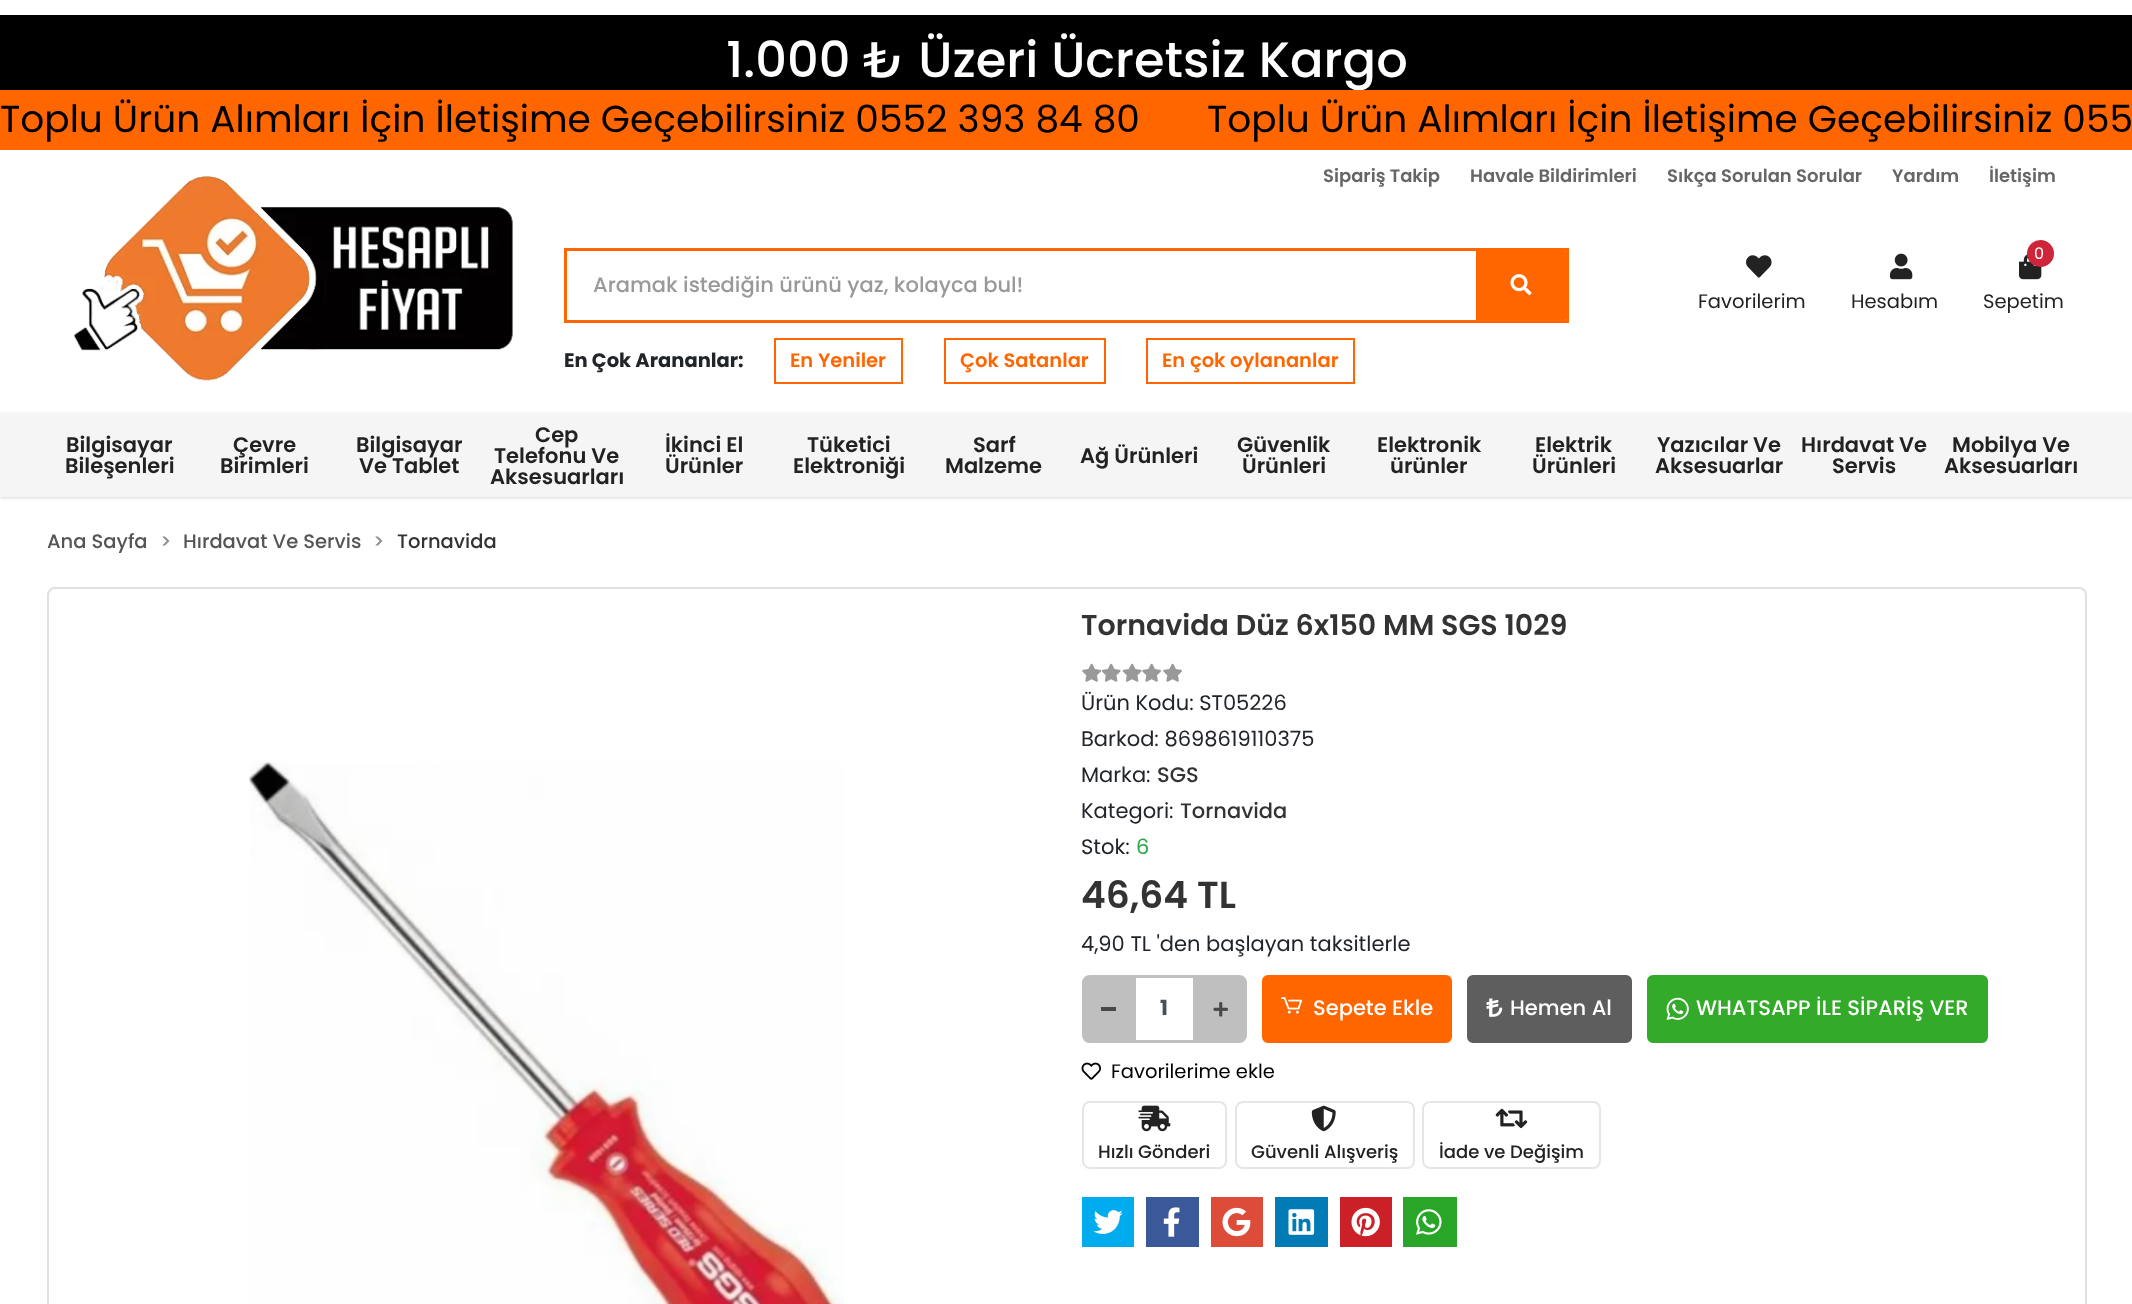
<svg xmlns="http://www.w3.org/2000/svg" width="2132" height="1304">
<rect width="100%" height="100%" fill="#fff"/>
<rect y="15" width="2132" height="75" fill="#000"/>
<text x="726" y="77" style="font-family:Poppins;font-size:49.5px;font-weight:500;fill:#fff">1.000 ₺ Üzeri Ücretsiz Kargo</text>
<rect y="90" width="2132" height="60" fill="#f60"/>
<text x="0" y="132" style="font-family:Poppins;font-size:37.5px;fill:#000">Toplu Ürün Alımları İçin İletişime Geçebilirsiniz 0552 393 84 80</text>
<text x="1207" y="132" style="font-family:Poppins;font-size:37.5px;fill:#000">Toplu Ürün Alımları İçin İletişime Geçebilirsiniz 055</text>
<text x="1323" y="182" style="font-family:Poppins;font-size:18px;font-weight:600;fill:#666">Sipariş Takip</text>
<text x="1470" y="182" style="font-family:Poppins;font-size:18px;font-weight:600;fill:#666">Havale Bildirimleri</text>
<text x="1667" y="182" style="font-family:Poppins;font-size:18px;font-weight:600;fill:#666">Sıkça Sorulan Sorular</text>
<text x="1892" y="182" style="font-family:Poppins;font-size:18px;font-weight:600;fill:#666">Yardım</text>
<text x="1989" y="182" style="font-family:Poppins;font-size:18px;font-weight:600;fill:#666">İletişim</text>
<image x="73" y="176" width="440" height="205" href="media/1.png"/>
<rect x="565.5" y="249.5" width="1002" height="72" fill="none" stroke="#f60" stroke-width="3"/>
<text x="593" y="292" style="font-family:Poppins;font-size:21px;font-weight:500;fill:#999">Aramak istediğin ürünü yaz, kolayca bul!</text>
<path d="M1476 251h88.5c1 0 1.5 .5 1.5 1.5v66c0 1-.5 1.5-1.5 1.5h-88.5z" fill="#f60"/>
<image x="1510" y="274" width="22" height="22" href="media/2.png"/>
<text x="564" y="367" style="font-family:Poppins;font-size:19.5px;font-weight:bold;fill:#212529">En Çok Arananlar:</text>
<rect x="775" y="339" width="127" height="44" fill="none" stroke="#f60" stroke-width="2"/>
<text x="790" y="367" style="font-family:Poppins;font-size:19.5px;font-weight:600;fill:#f60">En Yeniler</text>
<rect x="945" y="339" width="160" height="44" fill="none" stroke="#f60" stroke-width="2"/>
<text x="960" y="367" style="font-family:Poppins;font-size:19.5px;font-weight:600;fill:#f60">Çok Satanlar</text>
<rect x="1147" y="339" width="207" height="44" fill="none" stroke="#f60" stroke-width="2"/>
<text x="1162" y="367" style="font-family:Poppins;font-size:19.5px;font-weight:600;fill:#f60">En çok oylananlar</text>
<image x="1746" y="255" width="26" height="23" href="media/3.png"/>
<text x="1698" y="308" style="font-family:Poppins;font-size:19.5px;fill:#222">Favorilerim</text>
<image x="1890" y="253" width="23" height="27" href="media/4.png"/>
<text x="1851" y="308" style="font-family:Poppins;font-size:19.5px;fill:#222">Hesabım</text>
<image x="2019" y="254" width="23" height="26" href="media/5.png"/>
<circle cx="2040.5" cy="253.5" r="13.5" fill="#cd263a"/>
<text x="2034" y="259" style="font-family:Poppins;font-size:16px;fill:#fff">0</text>
<text x="1983" y="308" style="font-family:Poppins;font-size:19.5px;fill:#222">Sepetim</text>
<rect y="414" width="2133" height="84" fill="#00000029" filter="blur(1.5px)"/>
<rect y="413" width="2132" height="84" fill="#f5f5f5"/>
<text x="66" y="452" style="font-family:Poppins;font-size:21px;font-weight:600;fill:#222">Bilgisayar</text>
<text x="65" y="473" style="font-family:Poppins;font-size:21px;font-weight:600;fill:#222">Bileşenleri</text>
<text x="233" y="452" style="font-family:Poppins;font-size:21px;font-weight:600;fill:#222">Çevre</text>
<text x="220" y="473" style="font-family:Poppins;font-size:21px;font-weight:600;fill:#222">Birimleri</text>
<text x="356" y="452" style="font-family:Poppins;font-size:21px;font-weight:600;fill:#222">Bilgisayar</text>
<text x="359" y="473" style="font-family:Poppins;font-size:21px;font-weight:600;fill:#222">Ve Tablet</text>
<text x="535" y="442" style="font-family:Poppins;font-size:21px;font-weight:600;fill:#222">Cep</text>
<text x="494" y="463" style="font-family:Poppins;font-size:21px;font-weight:600;fill:#222">Telefonu Ve</text>
<text x="490" y="484" style="font-family:Poppins;font-size:21px;font-weight:600;fill:#222">Aksesuarları</text>
<text x="665" y="452" style="font-family:Poppins;font-size:21px;font-weight:600;fill:#222">İkinci El</text>
<text x="665" y="473" style="font-family:Poppins;font-size:21px;font-weight:600;fill:#222">Ürünler</text>
<text x="807" y="452" style="font-family:Poppins;font-size:21px;font-weight:600;fill:#222">Tüketici</text>
<text x="793" y="473" style="font-family:Poppins;font-size:21px;font-weight:600;fill:#222">Elektroniği</text>
<text x="973" y="452" style="font-family:Poppins;font-size:21px;font-weight:600;fill:#222">Sarf</text>
<text x="945" y="473" style="font-family:Poppins;font-size:21px;font-weight:600;fill:#222">Malzeme</text>
<text x="1080" y="463" style="font-family:Poppins;font-size:21px;font-weight:600;fill:#222">Ağ Ürünleri</text>
<text x="1237" y="452" style="font-family:Poppins;font-size:21px;font-weight:600;fill:#222">Güvenlik</text>
<text x="1242" y="473" style="font-family:Poppins;font-size:21px;font-weight:600;fill:#222">Ürünleri</text>
<text x="1377" y="452" style="font-family:Poppins;font-size:21px;font-weight:600;fill:#222">Elektronik</text>
<text x="1390" y="473" style="font-family:Poppins;font-size:21px;font-weight:600;fill:#222">ürünler</text>
<text x="1535" y="452" style="font-family:Poppins;font-size:21px;font-weight:600;fill:#222">Elektrik</text>
<text x="1532" y="473" style="font-family:Poppins;font-size:21px;font-weight:600;fill:#222">Ürünleri</text>
<text x="1657" y="452" style="font-family:Poppins;font-size:21px;font-weight:600;fill:#222">Yazıcılar Ve</text>
<text x="1655" y="473" style="font-family:Poppins;font-size:21px;font-weight:600;fill:#222">Aksesuarlar</text>
<text x="1801" y="452" style="font-family:Poppins;font-size:21px;font-weight:600;fill:#222">Hırdavat Ve</text>
<text x="1832" y="473" style="font-family:Poppins;font-size:21px;font-weight:600;fill:#222">Servis</text>
<text x="1952" y="452" style="font-family:Poppins;font-size:21px;font-weight:600;fill:#222">Mobilya Ve</text>
<text x="1944" y="473" style="font-family:Poppins;font-size:21px;font-weight:600;fill:#222">Aksesuarları</text>
<text x="47" y="548" style="font-family:Poppins;font-size:19.5px;font-weight:500;fill:#555">Ana Sayfa</text>
<text x="160" y="548" style="font-family:Poppins;font-size:19.5px;font-weight:500;fill:#8e8e8e">&gt;</text>
<text x="183" y="548" style="font-family:Poppins;font-size:19.5px;font-weight:500;fill:#555">Hırdavat Ve Servis</text>
<text x="373" y="548" style="font-family:Poppins;font-size:19.5px;font-weight:500;fill:#8e8e8e">&gt;</text>
<text x="397" y="548" style="font-family:Poppins;font-size:19.5px;font-weight:500;fill:#333">Tornavida</text>
<rect x="48" y="588" width="2038" height="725" rx="7" fill="none" stroke="#e0e0e0" stroke-width="2"/>
<image x="249" y="762" width="595" height="542" href="media/6.png"/>
<text x="1081" y="635" style="font-family:Poppins;font-size:28.5px;font-weight:600;fill:#333">Tornavida Düz 6x150 MM SGS 1029</text>
<image x="1082" y="663" width="19" height="19" href="media/7.png"/>
<image x="1101" y="663" width="20" height="19" href="media/8.png"/>
<image x="1122" y="663" width="20" height="19" href="media/8.png"/>
<image x="1142" y="663" width="19" height="19" href="media/7.png"/>
<image x="1163" y="663" width="19" height="19" href="media/7.png"/>
<text x="1081" y="710" style="font-family:Poppins;font-size:21px;fill:#212529">Ürün Kodu: ST05226</text>
<text x="1081" y="746" style="font-family:Poppins;font-size:21px;fill:#212529">Barkod: 8698619110375</text>
<text x="1081" y="782" style="font-family:Poppins;font-size:21px;fill:#212529">Marka:</text>
<text x="1157" y="782" style="font-family:Poppins;font-size:21px;font-weight:500;fill:#333">SGS</text>
<text x="1081" y="818" style="font-family:Poppins;font-size:21px;fill:#212529">Kategori:</text>
<text x="1180" y="818" style="font-family:Poppins;font-size:21px;font-weight:500;fill:#333">Tornavida</text>
<text x="1081" y="854" style="font-family:Poppins;font-size:21px;fill:#212529">Stok:</text>
<text x="1136" y="854" style="font-family:Poppins;font-size:21px;fill:#28a745">6</text>
<text x="1081" y="908" style="font-family:Poppins;font-size:37.5px;font-weight:600;fill:#333">46,64 TL</text>
<text x="1081" y="951" style="font-family:Poppins;font-size:21px;fill:#212529">4,90 TL 'den başlayan taksitlerle</text>
<path d="M1090 975h44v68h-44c-4.5 0-8-3.5-8-8v-52c0-4.5 3.5-8 8-8z" fill="#bfbfbf"/>
<rect x="1101" y="1007" width="15" height="4" fill="#484848"/>
<rect x="1134" y="975" width="60" height="3" fill="#bfbfbf"/>
<rect x="1193" y="975" width="1" height="68" fill="#bfbfbf"/>
<rect x="1134" y="1040" width="60" height="3" fill="#bfbfbf"/>
<rect x="1134" y="975" width="2" height="68" fill="#bfbfbf"/>
<text x="1160" y="1015" style="font-family:Poppins;font-size:21px;font-weight:bold;fill:#495057">1</text>
<path d="M1194 975h45c4.5 0 8 3.5 8 8v52c0 4.5-3.5 8-8 8h-45z" fill="#bfbfbf"/>
<image x="1213" y="1002" width="15" height="15" href="media/9.png"/>
<rect x="1263" y="976" width="188" height="66" rx="5" fill="#f60" stroke="#f60" stroke-width="2"/>
<image x="1281" y="997" width="21" height="17" href="media/10.png"/>
<text x="1313" y="1015" style="font-family:Poppins;font-size:21px;font-weight:500;fill:#fff">Sepete Ekle</text>
<rect x="1468" y="976" width="163" height="66" rx="5" fill="#5e5e5e" stroke="#5e5e5e" stroke-width="2"/>
<image x="1486" y="998" width="17" height="19" href="media/11.png"/>
<text x="1510" y="1015" style="font-family:Poppins;font-size:21px;font-weight:500;fill:#fff">Hemen Al</text>
<rect x="1648" y="976" width="339" height="66" rx="5" fill="#33aa29" stroke="#33aa29" stroke-width="2"/>
<image x="1666" y="997" width="23" height="23" href="media/12.png"/>
<text x="1696" y="1015" style="font-family:Poppins;font-size:21px;font-weight:500;fill:#fff">WHATSAPP İLE SİPARİŞ VER</text>
<image x="1081" y="1062" width="20" height="18" href="media/13.png"/>
<text x="1111" y="1078" style="font-family:Poppins;font-size:19.5px;fill:#000">Favorilerime ekle</text>
<rect x="1083" y="1102" width="143" height="66" rx="7" fill="none" stroke="#e6e6e6" stroke-width="2"/>
<image x="1138" y="1105" width="33" height="27" href="media/14.png"/>
<text x="1098" y="1158" style="font-family:Poppins;font-size:18px;font-weight:500;fill:#222">Hızlı Gönderi</text>
<rect x="1236" y="1102" width="178" height="66" rx="7" fill="none" stroke="#e6e6e6" stroke-width="2"/>
<image x="1311" y="1105" width="25" height="27" href="media/15.png"/>
<text x="1251" y="1158" style="font-family:Poppins;font-size:18px;font-weight:500;fill:#222">Güvenli Alışveriş</text>
<rect x="1423" y="1102" width="177" height="66" rx="7" fill="none" stroke="#e6e6e6" stroke-width="2"/>
<image x="1495" y="1108" width="33" height="21" href="media/16.png"/>
<text x="1439" y="1158" style="font-family:Poppins;font-size:18px;font-weight:500;fill:#222">İade ve Değişim</text>
<rect x="1082" y="1197" width="52" height="50" fill="#00aced"/>
<image x="1093" y="1210" width="30" height="24" href="media/17.png"/>
<rect x="1146" y="1197" width="53" height="50" fill="#3b5998"/>
<image x="1163" y="1207" width="17" height="30" href="media/18.png"/>
<rect x="1211" y="1197" width="52" height="50" fill="#dd4b39"/>
<image x="1222" y="1207" width="29" height="30" href="media/19.png"/>
<rect x="1275" y="1197" width="53" height="50" fill="#007bb6"/>
<image x="1288" y="1209" width="27" height="26" href="media/20.png"/>
<rect x="1340" y="1197" width="52" height="50" fill="#cb2027"/>
<image x="1351" y="1207" width="29" height="30" href="media/21.png"/>
<rect x="1403" y="1197" width="54" height="50" fill="#29a628"/>
<image x="1416" y="1209" width="26" height="26" href="media/22.png"/>
</svg>
